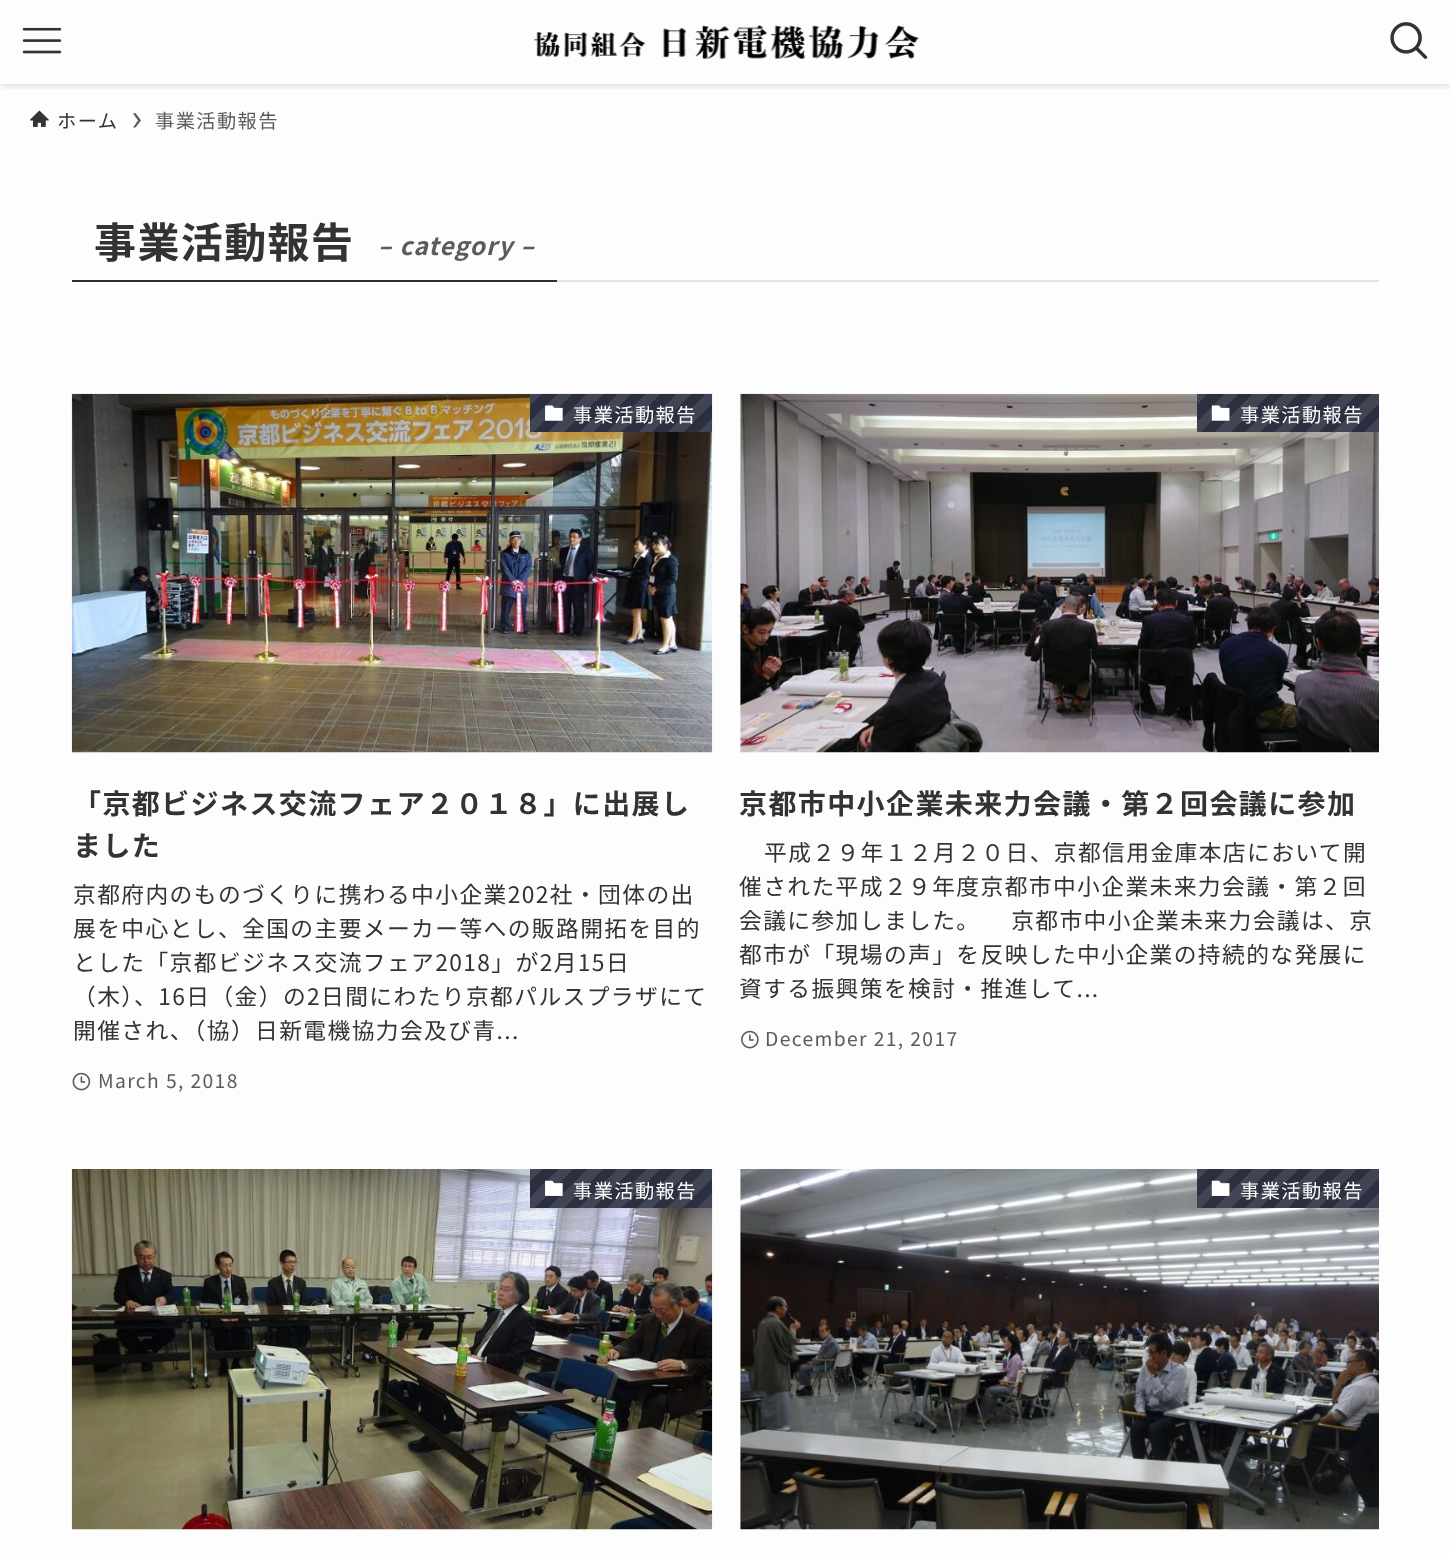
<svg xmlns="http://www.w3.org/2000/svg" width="1450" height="1553">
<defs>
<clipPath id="clip1"><rect x="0" y="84" width="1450" height="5"/></clipPath>
<linearGradient id="g1" gradientUnits="userSpaceOnUse" x1="676" y1="468" x2="558" y2="349"><stop offset="0" stop-color="#404453"/><stop offset="0.06" stop-color="#404453"/><stop offset="0.06" stop-color="#2b2f40"/><stop offset="0.12" stop-color="#2b2f40"/><stop offset="0.12" stop-color="#404453"/><stop offset="0.19" stop-color="#404453"/><stop offset="0.19" stop-color="#2b2f40"/><stop offset="0.25" stop-color="#2b2f40"/><stop offset="0.25" stop-color="#404453"/><stop offset="0.31" stop-color="#404453"/><stop offset="0.31" stop-color="#2b2f40"/><stop offset="0.38" stop-color="#2b2f40"/><stop offset="0.38" stop-color="#404453"/><stop offset="0.44" stop-color="#404453"/><stop offset="0.44" stop-color="#2b2f40"/><stop offset="0.5" stop-color="#2b2f40"/><stop offset="0.5" stop-color="#404453"/><stop offset="0.56" stop-color="#404453"/><stop offset="0.56" stop-color="#2b2f40"/><stop offset="0.62" stop-color="#2b2f40"/><stop offset="0.62" stop-color="#404453"/><stop offset="0.69" stop-color="#404453"/><stop offset="0.69" stop-color="#2b2f40"/><stop offset="0.75" stop-color="#2b2f40"/><stop offset="0.75" stop-color="#404453"/><stop offset="0.81" stop-color="#404453"/><stop offset="0.81" stop-color="#2b2f40"/><stop offset="0.88" stop-color="#2b2f40"/><stop offset="0.88" stop-color="#404453"/><stop offset="0.94" stop-color="#404453"/><stop offset="0.94" stop-color="#2b2f40"/><stop offset="1" stop-color="#2b2f40"/></linearGradient>
<linearGradient id="g2" gradientUnits="userSpaceOnUse" x1="1343" y1="468" x2="1224" y2="349"><stop offset="0" stop-color="#404453"/><stop offset="0.06" stop-color="#404453"/><stop offset="0.06" stop-color="#2b2f40"/><stop offset="0.12" stop-color="#2b2f40"/><stop offset="0.12" stop-color="#404453"/><stop offset="0.19" stop-color="#404453"/><stop offset="0.19" stop-color="#2b2f40"/><stop offset="0.25" stop-color="#2b2f40"/><stop offset="0.25" stop-color="#404453"/><stop offset="0.31" stop-color="#404453"/><stop offset="0.31" stop-color="#2b2f40"/><stop offset="0.38" stop-color="#2b2f40"/><stop offset="0.38" stop-color="#404453"/><stop offset="0.44" stop-color="#404453"/><stop offset="0.44" stop-color="#2b2f40"/><stop offset="0.5" stop-color="#2b2f40"/><stop offset="0.5" stop-color="#404453"/><stop offset="0.56" stop-color="#404453"/><stop offset="0.56" stop-color="#2b2f40"/><stop offset="0.62" stop-color="#2b2f40"/><stop offset="0.62" stop-color="#404453"/><stop offset="0.69" stop-color="#404453"/><stop offset="0.69" stop-color="#2b2f40"/><stop offset="0.75" stop-color="#2b2f40"/><stop offset="0.75" stop-color="#404453"/><stop offset="0.81" stop-color="#404453"/><stop offset="0.81" stop-color="#2b2f40"/><stop offset="0.88" stop-color="#2b2f40"/><stop offset="0.88" stop-color="#404453"/><stop offset="0.94" stop-color="#404453"/><stop offset="0.94" stop-color="#2b2f40"/><stop offset="1" stop-color="#2b2f40"/></linearGradient>
<linearGradient id="g3" gradientUnits="userSpaceOnUse" x1="676" y1="1243" x2="558" y2="1125"><stop offset="0" stop-color="#404453"/><stop offset="0.06" stop-color="#404453"/><stop offset="0.06" stop-color="#2b2f40"/><stop offset="0.12" stop-color="#2b2f40"/><stop offset="0.12" stop-color="#404453"/><stop offset="0.19" stop-color="#404453"/><stop offset="0.19" stop-color="#2b2f40"/><stop offset="0.25" stop-color="#2b2f40"/><stop offset="0.25" stop-color="#404453"/><stop offset="0.31" stop-color="#404453"/><stop offset="0.31" stop-color="#2b2f40"/><stop offset="0.38" stop-color="#2b2f40"/><stop offset="0.38" stop-color="#404453"/><stop offset="0.44" stop-color="#404453"/><stop offset="0.44" stop-color="#2b2f40"/><stop offset="0.5" stop-color="#2b2f40"/><stop offset="0.5" stop-color="#404453"/><stop offset="0.56" stop-color="#404453"/><stop offset="0.56" stop-color="#2b2f40"/><stop offset="0.62" stop-color="#2b2f40"/><stop offset="0.62" stop-color="#404453"/><stop offset="0.69" stop-color="#404453"/><stop offset="0.69" stop-color="#2b2f40"/><stop offset="0.75" stop-color="#2b2f40"/><stop offset="0.75" stop-color="#404453"/><stop offset="0.81" stop-color="#404453"/><stop offset="0.81" stop-color="#2b2f40"/><stop offset="0.88" stop-color="#2b2f40"/><stop offset="0.88" stop-color="#404453"/><stop offset="0.94" stop-color="#404453"/><stop offset="0.94" stop-color="#2b2f40"/><stop offset="1" stop-color="#2b2f40"/></linearGradient>
<linearGradient id="g4" gradientUnits="userSpaceOnUse" x1="1343" y1="1243" x2="1224" y2="1125"><stop offset="0" stop-color="#404453"/><stop offset="0.06" stop-color="#404453"/><stop offset="0.06" stop-color="#2b2f40"/><stop offset="0.12" stop-color="#2b2f40"/><stop offset="0.12" stop-color="#404453"/><stop offset="0.19" stop-color="#404453"/><stop offset="0.19" stop-color="#2b2f40"/><stop offset="0.25" stop-color="#2b2f40"/><stop offset="0.25" stop-color="#404453"/><stop offset="0.31" stop-color="#404453"/><stop offset="0.31" stop-color="#2b2f40"/><stop offset="0.38" stop-color="#2b2f40"/><stop offset="0.38" stop-color="#404453"/><stop offset="0.44" stop-color="#404453"/><stop offset="0.44" stop-color="#2b2f40"/><stop offset="0.5" stop-color="#2b2f40"/><stop offset="0.5" stop-color="#404453"/><stop offset="0.56" stop-color="#404453"/><stop offset="0.56" stop-color="#2b2f40"/><stop offset="0.62" stop-color="#2b2f40"/><stop offset="0.62" stop-color="#404453"/><stop offset="0.69" stop-color="#404453"/><stop offset="0.69" stop-color="#2b2f40"/><stop offset="0.75" stop-color="#2b2f40"/><stop offset="0.75" stop-color="#404453"/><stop offset="0.81" stop-color="#404453"/><stop offset="0.81" stop-color="#2b2f40"/><stop offset="0.88" stop-color="#2b2f40"/><stop offset="0.88" stop-color="#404453"/><stop offset="0.94" stop-color="#404453"/><stop offset="0.94" stop-color="#2b2f40"/><stop offset="1" stop-color="#2b2f40"/></linearGradient>
</defs>
<rect width="100%" height="100%" fill="#fdfdfd"/>
<g clip-path="url(#clip1)">
<rect y="2" width="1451" height="84" fill="#0000001f" filter="blur(3.5px)"/>
</g>
<image x="22" y="27" width="40" height="27" href="media/1.png"/>
<image x="533" y="25" width="386" height="34" href="media/2.png"/>
<image x="1390" y="22" width="38" height="37" href="media/3.png"/>
<image x="30" y="110" width="19" height="17" href="media/4.png"/>
<text x="57" y="128" style="font-family:Noto Sans JP;font-size:19.25px;letter-spacing:1.4px;fill:#333">ホーム</text>
<path d="M135.5 113l-2.5 .5l5 7l-5 7h2.5l5.5-7z" fill="#5b5b5b"/>
<text x="155" y="128" style="font-family:Noto Sans JP;font-size:19.25px;letter-spacing:1.4px;fill:#5b5b5b">事業活動報告</text>
<rect x="557" y="280" width="822" height="2" fill="#e3e3e3"/>
<rect x="72" y="280" width="485" height="2" fill="#2b2f40"/>
<text x="94" y="258" style="font-family:Noto Sans JP;font-size:42px;font-weight:bold;letter-spacing:1.4px;fill:#333">事業活動報告</text>
<text x="378" y="255" style="font-family:Noto Sans JP;font-size:24.5px;font-weight:bold;font-style:italic;letter-spacing:1.25px;fill:#5b5b5b">– category –</text>
<image x="71" y="393" width="642" height="360" href="media/5.png"/>
<rect x="530" y="394" width="182" height="38" fill="url(#g1)"/>
<image x="545" y="405" width="18" height="16" href="media/6.png"/>
<text x="573" y="422" style="font-family:Noto Sans JP;font-size:19.25px;letter-spacing:1.4px;fill:#fff">事業活動報告</text>
<text x="73" y="814" style="font-family:Noto Sans JP;font-size:28px;font-weight:bold;letter-spacing:1.4px;fill:#333">「京都ビジネス交流フェア２０１８」に出展し</text>
<text x="73" y="856" style="font-family:Noto Sans JP;font-size:28px;font-weight:bold;letter-spacing:1.4px;fill:#333">ました</text>
<text x="73" y="903" style="font-family:Noto Sans JP;font-size:22.75px;letter-spacing:1.4px;fill:#333">京都府内のものづくりに携わる中小企業202社・団体の出</text>
<text x="73" y="937" style="font-family:Noto Sans JP;font-size:22.75px;letter-spacing:1.4px;fill:#333">展を中心とし、全国の主要メーカー等への販路開拓を目的</text>
<text x="73" y="971" style="font-family:Noto Sans JP;font-size:22.75px;letter-spacing:1.4px;fill:#333">とした「京都ビジネス交流フェア2018」が2月15日</text>
<text x="73" y="1005" style="font-family:Noto Sans JP;font-size:22.75px;letter-spacing:1.4px;fill:#333">（木）、16日（金）の2日間にわたり京都パルスプラザにて</text>
<text x="73" y="1039" style="font-family:Noto Sans JP;font-size:22.75px;letter-spacing:1.4px;fill:#333">開催され、（協）日新電機協力会及び青...</text>
<image x="72" y="1072" width="19" height="19" href="media/7.png"/>
<text x="98" y="1088" style="font-family:Noto Sans JP;font-size:19.25px;letter-spacing:1.4px;fill:#5b5b5b">March 5, 2018</text>
<image x="740" y="393" width="639" height="360" href="media/8.png"/>
<rect x="1197" y="394" width="182" height="38" fill="url(#g2)"/>
<image x="1211" y="405" width="19" height="16" href="media/9.png"/>
<text x="1240" y="422" style="font-family:Noto Sans JP;font-size:19.25px;letter-spacing:1.4px;fill:#fff">事業活動報告</text>
<text x="739" y="814" style="font-family:Noto Sans JP;font-size:28px;font-weight:bold;letter-spacing:1.4px;fill:#333">京都市中小企業未来力会議・第２回会議に参加</text>
<text x="764" y="861" style="font-family:Noto Sans JP;font-size:22.75px;letter-spacing:1.4px;fill:#333">平成２９年１２月２０日、京都信用金庫本店において開</text>
<text x="739" y="895" style="font-family:Noto Sans JP;font-size:22.75px;letter-spacing:1.4px;fill:#333">催された平成２９年度京都市中小企業未来力会議・第２回</text>
<text x="739" y="929" style="font-family:Noto Sans JP;font-size:22.75px;letter-spacing:1.4px;fill:#333">会議に参加しました。 　京都市中小企業未来力会議は、京</text>
<text x="739" y="963" style="font-family:Noto Sans JP;font-size:22.75px;letter-spacing:1.4px;fill:#333">都市が「現場の声」を反映した中小企業の持続的な発展に</text>
<text x="739" y="997" style="font-family:Noto Sans JP;font-size:22.75px;letter-spacing:1.4px;fill:#333">資する振興策を検討・推進して...</text>
<image x="741" y="1030" width="18" height="19" href="media/10.png"/>
<text x="765" y="1046" style="font-family:Noto Sans JP;font-size:19.25px;letter-spacing:1.4px;fill:#5b5b5b">December 21, 2017</text>
<image x="71" y="1169" width="642" height="361" href="media/11.png"/>
<rect x="530" y="1169" width="182" height="39" fill="url(#g3)"/>
<image x="545" y="1180" width="18" height="16" href="media/12.png"/>
<text x="573" y="1198" style="font-family:Noto Sans JP;font-size:19.25px;letter-spacing:1.4px;fill:#fff">事業活動報告</text>
<image x="740" y="1169" width="639" height="361" href="media/13.png"/>
<rect x="1197" y="1169" width="182" height="39" fill="url(#g4)"/>
<image x="1211" y="1180" width="19" height="16" href="media/14.png"/>
<text x="1240" y="1198" style="font-family:Noto Sans JP;font-size:19.25px;letter-spacing:1.4px;fill:#fff">事業活動報告</text>
</svg>
